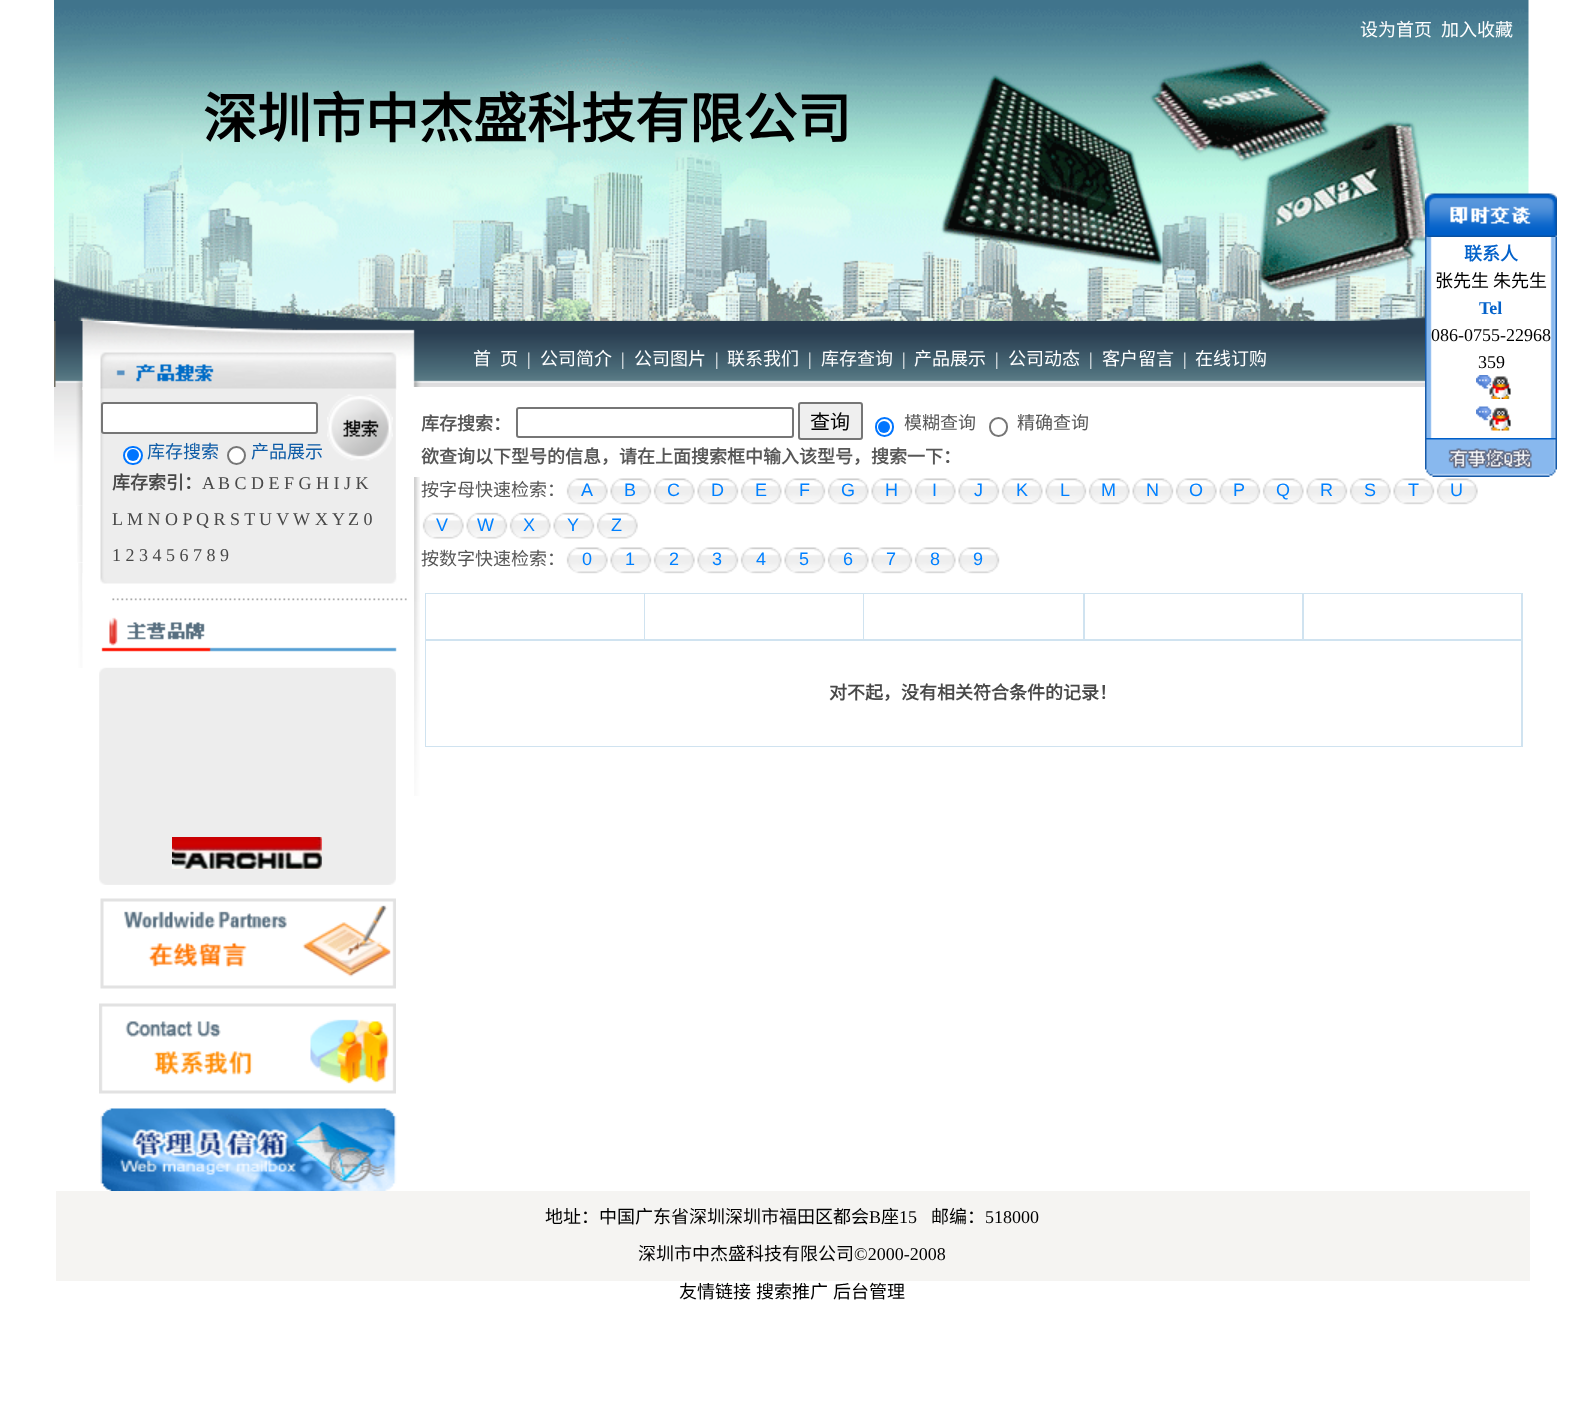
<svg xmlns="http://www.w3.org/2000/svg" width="1580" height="1403">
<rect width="100%" height="100%" fill="#fff"/>
<image x="54" y="0" width="1475" height="321" href="media/1.png"/>
<text x="1360" y="36" style="font-family:Noto Sans CJK SC;font-size:18px;fill:#fff">设为首页</text>
<text x="1441" y="36" style="font-family:Noto Sans CJK SC;font-size:18px;fill:#fff">加入收藏</text>
<text x="203" y="138" style="font-family:Noto Sans CJK SC;font-size:54px;font-weight:bold;fill:#000">深圳市中杰盛科技有限公司</text>
<image x="54" y="321" width="1371" height="66" href="media/2.png"/>
<text x="473" y="365" style="font-family:Noto Sans CJK SC;font-size:18px;fill:#fff">首</text>
<text x="500" y="365" style="font-family:Noto Sans CJK SC;font-size:18px;fill:#fff">页</text>
<text x="527" y="365" style="font-family:Liberation Serif;font-size:18px;fill:#fff">|</text>
<text x="540" y="365" style="font-family:Noto Sans CJK SC;font-size:18px;fill:#fff">公司简介</text>
<text x="621" y="365" style="font-family:Liberation Serif;font-size:18px;fill:#fff">|</text>
<text x="634" y="365" style="font-family:Noto Sans CJK SC;font-size:18px;fill:#fff">公司图片</text>
<text x="715" y="365" style="font-family:Liberation Serif;font-size:18px;fill:#fff">|</text>
<text x="727" y="365" style="font-family:Noto Sans CJK SC;font-size:18px;fill:#fff">联系我们</text>
<text x="808" y="365" style="font-family:Liberation Serif;font-size:18px;fill:#fff">|</text>
<text x="821" y="365" style="font-family:Noto Sans CJK SC;font-size:18px;fill:#fff">库存查询</text>
<text x="902" y="365" style="font-family:Liberation Serif;font-size:18px;fill:#fff">|</text>
<text x="914" y="365" style="font-family:Noto Sans CJK SC;font-size:18px;fill:#fff">产品展示</text>
<text x="995" y="365" style="font-family:Liberation Serif;font-size:18px;fill:#fff">|</text>
<text x="1008" y="365" style="font-family:Noto Sans CJK SC;font-size:18px;fill:#fff">公司动态</text>
<text x="1089" y="365" style="font-family:Liberation Serif;font-size:18px;fill:#fff">|</text>
<text x="1102" y="365" style="font-family:Noto Sans CJK SC;font-size:18px;fill:#fff">客户留言</text>
<text x="1183" y="365" style="font-family:Liberation Serif;font-size:18px;fill:#fff">|</text>
<text x="1195" y="365" style="font-family:Noto Sans CJK SC;font-size:18px;fill:#fff">在线订购</text>
<image x="1425" y="193" width="132" height="44" href="media/3.png"/>
<image x="1425" y="237" width="132" height="30" href="media/4.png"/>
<text x="1464" y="260" style="font-family:Noto Sans CJK SC;font-size:18px;font-weight:bold;fill:#0462ca">联系人</text>
<image x="1425" y="267" width="132" height="27" href="media/5.png"/>
<text x="1435" y="287" style="font-family:Noto Sans CJK SC;font-size:18px;fill:#000">张先生</text>
<text x="1493" y="287" style="font-family:Noto Sans CJK SC;font-size:18px;fill:#000">朱先生</text>
<image x="1425" y="294" width="132" height="27" href="media/5.png"/>
<text x="1479" y="314" style="font-family:Liberation Serif;font-size:18px;font-weight:bold;fill:#0462ca">Tel</text>
<image x="1425" y="321" width="132" height="54" href="media/6.png"/>
<text x="1431" y="341" style="font-family:Liberation Serif;font-size:18px;fill:#000">086-0755-22968</text>
<text x="1478" y="368" style="font-family:Liberation Serif;font-size:18px;fill:#000">359</text>
<image x="1425" y="375" width="132" height="63" href="media/7.png"/>
<image x="1476" y="375" width="35" height="24" href="media/8.png"/>
<image x="1476" y="406" width="35" height="25" href="media/9.png"/>
<image x="1425" y="438" width="132" height="39" href="media/10.png"/>
<image x="54" y="387" width="29" height="119" href="media/11.png"/>
<image x="77" y="505" width="6" height="58" href="media/12.png"/>
<image x="78" y="563" width="5" height="105" href="media/13.png"/>
<image x="82" y="387" width="315" height="3" href="media/14.png"/>
<image x="100" y="390" width="296" height="183" href="media/15.png"/>
<rect x="102" y="403" width="215" height="30" rx="2" fill="#fff" stroke="#767676" stroke-width="2"/>
<image x="327" y="394" width="66" height="67" href="media/16.png"/>
<rect x="124" y="447" width="18" height="17" rx="8.5" fill="#fff" stroke="#0075ff" stroke-width="2"/>
<circle cx="133" cy="455" r="6" fill="#0075ff"/>
<text x="147" y="458" style="font-family:Noto Sans CJK SC;font-size:18px;fill:#0d5ba6">库存搜索</text>
<circle cx="236.5" cy="455.5" r="8.5" fill="#fff" stroke="#767676" stroke-width="2"/>
<text x="251" y="458" style="font-family:Noto Sans CJK SC;font-size:18px;fill:#0d5ba6">产品展示</text>
<text x="112" y="489" style="font-family:Noto Sans CJK SC;font-size:18px;font-weight:bold;fill:#484848">库存索引：</text>
<text x="202" y="489" style="font-family:Liberation Serif;font-size:18px;fill:#484848">A</text>
<text x="218" y="489" style="font-family:Liberation Serif;font-size:18px;fill:#484848">B C D E F G H I J K</text>
<text x="112" y="525" style="font-family:Liberation Serif;font-size:18px;fill:#484848">L</text>
<text x="127" y="525" style="font-family:Liberation Serif;font-size:18px;fill:#484848">M N O P</text>
<text x="196" y="525" style="font-family:Liberation Serif;font-size:18px;fill:#484848">Q R S T</text>
<text x="259" y="525" style="font-family:Liberation Serif;font-size:18px;fill:#484848">U V</text>
<text x="293" y="525" style="font-family:Liberation Serif;font-size:18px;fill:#484848">W</text>
<text x="315" y="525" style="font-family:Liberation Serif;font-size:18px;fill:#484848">X</text>
<text x="332" y="525" style="font-family:Liberation Serif;font-size:18px;fill:#484848">Y</text>
<text x="348" y="525" style="font-family:Liberation Serif;font-size:18px;fill:#484848">Z 0</text>
<text x="112" y="561" style="font-family:Liberation Serif;font-size:18px;fill:#484848">1 2 3 4 5 6 7 8 9</text>
<image x="82" y="573" width="325" height="28" href="media/17.png"/>
<image x="99" y="667" width="297" height="218" href="media/19.png"/>
<image x="101" y="617" width="296" height="51" href="media/18.png"/>
<image x="172" y="837" width="150" height="32" href="media/20.png"/>
<image x="100" y="898" width="296" height="91" href="media/21.png"/>
<image x="99" y="1003" width="297" height="91" href="media/22.png"/>
<image x="100" y="1108" width="297" height="83" href="media/23.png"/>
<image x="414" y="477" width="6" height="319" href="media/24.png"/>
<text x="421" y="430" style="font-family:Noto Sans CJK SC;font-size:18px;font-weight:bold;fill:#575757">库存搜索：</text>
<rect x="517" y="408" width="276" height="29" rx="2" fill="none" stroke="#767676" stroke-width="2"/>
<rect x="799" y="403" width="63" height="36" rx="2" fill="#efefef" stroke="#767676" stroke-width="2"/>
<text x="810" y="429" style="font-family:Noto Sans CJK SC;font-size:20px;fill:#000">查询</text>
<rect x="876" y="418" width="17" height="18" rx="8.5" fill="none" stroke="#0075ff" stroke-width="2"/>
<circle cx="884" cy="427" r="6" fill="#0075ff"/>
<text x="904" y="429" style="font-family:Noto Sans CJK SC;font-size:18px;fill:#575757">模糊查询</text>
<rect x="990" y="418" width="17" height="18" rx="8.5" fill="none" stroke="#767676" stroke-width="2"/>
<text x="1017" y="429" style="font-family:Noto Sans CJK SC;font-size:18px;fill:#575757">精确查询</text>
<text x="421" y="463" style="font-family:Noto Sans CJK SC;font-size:18px;font-weight:bold;fill:#575757">欲查询以下型号的信息，请在上面搜索框中输入该型号，搜索一下：</text>
<text x="421" y="496" style="font-family:Noto Sans CJK SC;font-size:18px;fill:#575757">按字母快速检索：</text>
<image x="566" y="478" width="42" height="27" href="media/25.png"/>
<text x="581" y="496" style="font-family:Liberation Sans;font-size:18px;fill:#0080ff">A</text>
<image x="610" y="478" width="42" height="27" href="media/26.png"/>
<text x="624" y="496" style="font-family:Liberation Sans;font-size:18px;fill:#0080ff">B</text>
<image x="653" y="478" width="42" height="27" href="media/25.png"/>
<text x="667" y="496" style="font-family:Liberation Sans;font-size:18px;fill:#0080ff">C</text>
<image x="697" y="478" width="42" height="27" href="media/26.png"/>
<text x="711" y="496" style="font-family:Liberation Sans;font-size:18px;fill:#0080ff">D</text>
<image x="740" y="478" width="42" height="27" href="media/27.png"/>
<text x="755" y="496" style="font-family:Liberation Sans;font-size:18px;fill:#0080ff">E</text>
<image x="784" y="478" width="42" height="27" href="media/26.png"/>
<text x="799" y="496" style="font-family:Liberation Sans;font-size:18px;fill:#0080ff">F</text>
<image x="827" y="478" width="42" height="27" href="media/28.png"/>
<text x="841" y="496" style="font-family:Liberation Sans;font-size:18px;fill:#0080ff">G</text>
<image x="871" y="478" width="42" height="27" href="media/26.png"/>
<text x="885" y="496" style="font-family:Liberation Sans;font-size:18px;fill:#0080ff">H</text>
<image x="914" y="478" width="42" height="27" href="media/28.png"/>
<text x="932" y="496" style="font-family:Liberation Sans;font-size:18px;fill:#0080ff">I</text>
<image x="958" y="478" width="42" height="27" href="media/26.png"/>
<text x="974" y="496" style="font-family:Liberation Sans;font-size:18px;fill:#0080ff">J</text>
<image x="1001" y="478" width="42" height="27" href="media/28.png"/>
<text x="1016" y="496" style="font-family:Liberation Sans;font-size:18px;fill:#0080ff">K</text>
<image x="1045" y="478" width="42" height="27" href="media/29.png"/>
<text x="1060" y="496" style="font-family:Liberation Sans;font-size:18px;fill:#0080ff">L</text>
<image x="1088" y="478" width="42" height="27" href="media/28.png"/>
<text x="1101" y="496" style="font-family:Liberation Sans;font-size:18px;fill:#0080ff">M</text>
<image x="1132" y="478" width="42" height="27" href="media/29.png"/>
<text x="1146" y="496" style="font-family:Liberation Sans;font-size:18px;fill:#0080ff">N</text>
<image x="1175" y="478" width="42" height="27" href="media/25.png"/>
<text x="1189" y="496" style="font-family:Liberation Sans;font-size:18px;fill:#0080ff">O</text>
<image x="1219" y="478" width="42" height="27" href="media/29.png"/>
<text x="1233" y="496" style="font-family:Liberation Sans;font-size:18px;fill:#0080ff">P</text>
<image x="1262" y="478" width="42" height="27" href="media/28.png"/>
<text x="1276" y="496" style="font-family:Liberation Sans;font-size:18px;fill:#0080ff">Q</text>
<image x="1306" y="478" width="42" height="27" href="media/26.png"/>
<text x="1320" y="496" style="font-family:Liberation Sans;font-size:18px;fill:#0080ff">R</text>
<image x="1349" y="478" width="42" height="27" href="media/25.png"/>
<text x="1364" y="496" style="font-family:Liberation Sans;font-size:18px;fill:#0080ff">S</text>
<image x="1393" y="478" width="42" height="27" href="media/26.png"/>
<text x="1408" y="496" style="font-family:Liberation Sans;font-size:18px;fill:#0080ff">T</text>
<image x="1436" y="478" width="42" height="27" href="media/25.png"/>
<text x="1450" y="496" style="font-family:Liberation Sans;font-size:18px;fill:#0080ff">U</text>
<image x="422" y="512" width="42" height="27" href="media/30.png"/>
<text x="436" y="531" style="font-family:Liberation Sans;font-size:18px;fill:#0080ff">V</text>
<image x="466" y="512" width="42" height="27" href="media/31.png"/>
<text x="477" y="531" style="font-family:Liberation Sans;font-size:18px;fill:#0080ff">W</text>
<image x="509" y="512" width="42" height="27" href="media/32.png"/>
<text x="523" y="531" style="font-family:Liberation Sans;font-size:18px;fill:#0080ff">X</text>
<image x="553" y="512" width="42" height="27" href="media/33.png"/>
<text x="567" y="531" style="font-family:Liberation Sans;font-size:18px;fill:#0080ff">Y</text>
<image x="596" y="512" width="42" height="27" href="media/30.png"/>
<text x="611" y="531" style="font-family:Liberation Sans;font-size:18px;fill:#0080ff">Z</text>
<text x="421" y="565" style="font-family:Noto Sans CJK SC;font-size:18px;fill:#575757">按数字快速检索：</text>
<image x="566" y="547" width="42" height="27" href="media/25.png"/>
<text x="582" y="565" style="font-family:Liberation Sans;font-size:18px;fill:#0080ff">0</text>
<image x="610" y="547" width="42" height="27" href="media/26.png"/>
<text x="625" y="565" style="font-family:Liberation Sans;font-size:18px;fill:#0080ff">1</text>
<image x="653" y="547" width="42" height="27" href="media/25.png"/>
<text x="669" y="565" style="font-family:Liberation Sans;font-size:18px;fill:#0080ff">2</text>
<image x="697" y="547" width="42" height="27" href="media/26.png"/>
<text x="712" y="565" style="font-family:Liberation Sans;font-size:18px;fill:#0080ff">3</text>
<image x="740" y="547" width="42" height="27" href="media/27.png"/>
<text x="756" y="565" style="font-family:Liberation Sans;font-size:18px;fill:#0080ff">4</text>
<image x="784" y="547" width="42" height="27" href="media/26.png"/>
<text x="799" y="565" style="font-family:Liberation Sans;font-size:18px;fill:#0080ff">5</text>
<image x="827" y="547" width="42" height="27" href="media/28.png"/>
<text x="843" y="565" style="font-family:Liberation Sans;font-size:18px;fill:#0080ff">6</text>
<image x="871" y="547" width="42" height="27" href="media/26.png"/>
<text x="886" y="565" style="font-family:Liberation Sans;font-size:18px;fill:#0080ff">7</text>
<image x="914" y="547" width="42" height="27" href="media/28.png"/>
<text x="930" y="565" style="font-family:Liberation Sans;font-size:18px;fill:#0080ff">8</text>
<image x="958" y="547" width="42" height="27" href="media/26.png"/>
<text x="973" y="565" style="font-family:Liberation Sans;font-size:18px;fill:#0080ff">9</text>
<rect x="425" y="593" width="1098" height="154" fill="#d0e3f0"/>
<rect x="426" y="594" width="218" height="45" fill="#fff"/>
<rect x="645" y="594" width="218" height="45" fill="#fff"/>
<rect x="864" y="594" width="219" height="45" fill="#fff"/>
<rect x="1085" y="594" width="217" height="45" fill="#fff"/>
<rect x="1304" y="594" width="217" height="45" fill="#fff"/>
<rect x="426" y="641" width="1095" height="105" fill="#fff"/>
<text x="829" y="699" style="font-family:Noto Sans CJK SC;font-size:18px;font-weight:bold;fill:#484848">对不起，没有相关符合条件的记录！</text>
<rect x="56" y="1191" width="1474" height="90" fill="#f5f4f2"/>
<text x="545" y="1223" style="font-family:Noto Sans CJK SC;font-size:18px;fill:#000">地址：中国广东省深圳深圳市福田区都会</text>
<text x="869" y="1223" style="font-family:Liberation Serif;font-size:18px;fill:#000">B</text>
<text x="881" y="1223" style="font-family:Noto Sans CJK SC;font-size:18px;fill:#000">座</text>
<text x="899" y="1223" style="font-family:Liberation Serif;font-size:18px;fill:#000">15</text>
<text x="931" y="1223" style="font-family:Noto Sans CJK SC;font-size:18px;fill:#000">邮编：</text>
<text x="985" y="1223" style="font-family:Liberation Serif;font-size:18px;fill:#000">518000</text>
<text x="638" y="1260" style="font-family:Noto Sans CJK SC;font-size:18px;fill:#000">深圳市中杰盛科技有限公司</text>
<text x="854" y="1260" style="font-family:Liberation Serif;font-size:18px;fill:#000">©2000-2008</text>
<text x="679" y="1298" style="font-family:Noto Sans CJK SC;font-size:18px;fill:#000">友情链接</text>
<text x="756" y="1298" style="font-family:Noto Sans CJK SC;font-size:18px;fill:#000">搜索推广</text>
<text x="833" y="1298" style="font-family:Noto Sans CJK SC;font-size:18px;fill:#000">后台管理</text>
</svg>
